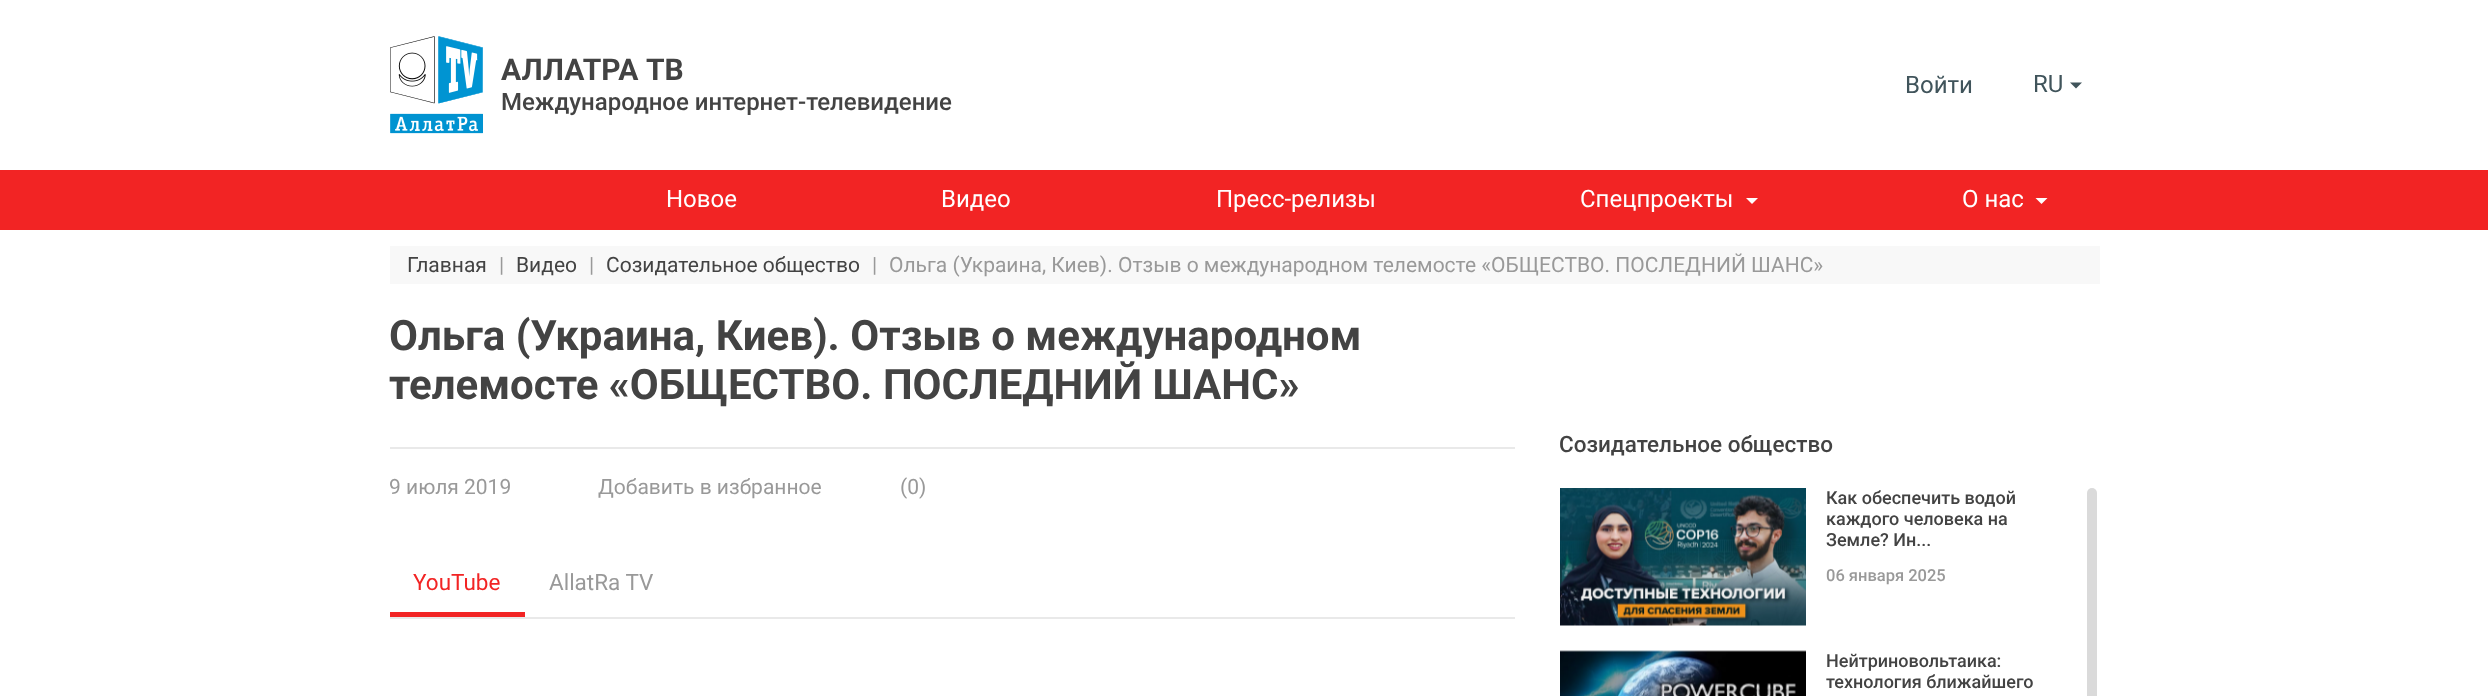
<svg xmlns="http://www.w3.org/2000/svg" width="2488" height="696">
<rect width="100%" height="100%" fill="#fff"/>
<image x="390" y="36" width="93" height="98" href="media/1.png"/>
<text x="501" y="80" word-spacing="1" style="font-family:Roboto;font-size:30px;font-weight:bold;fill:#434343">АЛЛАТРА ТВ</text>
<text x="501" y="110" style="font-family:Roboto;font-size:24px;font-weight:500;fill:#434343">Международное интернет-телевидение</text>
<text x="1905" y="93" style="font-family:Roboto;font-size:24px;fill:#40545b">Войти</text>
<text x="2033" y="92" style="font-family:Roboto;font-size:24px;fill:#40545b">RU</text>
<path d="M2070 82.5h12l-6 6z" fill="#40545b"/>
<rect y="170" width="2488" height="60" fill="#f22424"/>
<text x="666" y="207" style="font-family:Roboto;font-size:24px;fill:#fff">Новое</text>
<text x="941" y="207" style="font-family:Roboto;font-size:24px;fill:#fff">Видео</text>
<text x="1216" y="207" style="font-family:Roboto;font-size:24px;fill:#fff">Пресс-релизы</text>
<text x="1580" y="207" style="font-family:Roboto;font-size:24px;fill:#fff">Спецпроекты</text>
<path d="M1746 198h12l-6 6z" fill="#fff"/>
<text x="1962" y="207" style="font-family:Roboto;font-size:24px;fill:#fff">О нас</text>
<path d="M2035.5 198h12l-6 6z" fill="#fff"/>
<rect x="390" y="246" width="1710" height="38" fill="#f8f8f8"/>
<text x="407" y="272" style="font-family:Roboto;font-size:21px;fill:#434343">Главная</text>
<text x="499" y="272" style="font-family:Roboto;font-size:21px;fill:#999">|</text>
<text x="516" y="272" style="font-family:Roboto;font-size:21px;fill:#434343">Видео</text>
<text x="589" y="272" style="font-family:Roboto;font-size:21px;fill:#999">|</text>
<text x="606" y="272" style="font-family:Roboto;font-size:21px;fill:#434343">Созидательное общество</text>
<text x="872" y="272" style="font-family:Roboto;font-size:21px;fill:#999">|</text>
<text x="889" y="272" style="font-family:Roboto;font-size:21px;fill:#999">Ольга (Украина, Киев). Отзыв о международном телемосте «ОБЩЕСТВО. ПОСЛЕДНИЙ ШАНС»</text>
<text x="389" y="350" style="font-family:Roboto;font-size:42px;font-weight:bold;fill:#434343">Ольга (Украина, Киев). Отзыв о международном</text>
<text x="389" y="399" style="font-family:Roboto;font-size:42px;font-weight:bold;fill:#434343">телемосте «ОБЩЕСТВО. ПОСЛЕДНИЙ ШАНС»</text>
<rect x="390" y="447" width="1125" height="2" fill="#e9e9e9"/>
<text x="389" y="494" style="font-family:Roboto;font-size:21px;fill:#999">9 июля 2019</text>
<text x="598" y="494" style="font-family:Roboto;font-size:21px;fill:#999">Добавить в избранное</text>
<text x="900" y="494" style="font-family:Roboto;font-size:21px;fill:#999">(0)</text>
<rect x="390" y="617" width="1125" height="2" fill="#e9e9e9"/>
<rect x="390" y="612" width="135" height="5" fill="#f22424"/>
<text x="413" y="590" style="font-family:Roboto;font-size:22.5px;fill:#f22424">YouTube</text>
<text x="549" y="590" style="font-family:Roboto;font-size:22.5px;fill:#999">AllatRa TV</text>
<text x="1559" y="452" style="font-family:Roboto;font-size:22.5px;font-weight:500;fill:#434343">Созидательное общество</text>
<image x="1560" y="488" width="246" height="138" href="media/2.png"/>
<text x="1826" y="504" style="font-family:Roboto;font-size:18px;font-weight:500;fill:#434343">Как обеспечить водой</text>
<text x="1826" y="525" style="font-family:Roboto;font-size:18px;font-weight:500;fill:#434343">каждого человека на</text>
<text x="1826" y="546" style="font-family:Roboto;font-size:18px;font-weight:500;fill:#434343">Земле? Ин...</text>
<text x="1826" y="581" style="font-family:Roboto;font-size:16.5px;font-weight:500;fill:#999">06 января 2025</text>
<image x="1560" y="650" width="246" height="46" href="media/3.png"/>
<text x="1826" y="667" style="font-family:Roboto;font-size:18px;font-weight:500;fill:#434343">Нейтриновольтаика:</text>
<text x="1826" y="688" style="font-family:Roboto;font-size:18px;font-weight:500;fill:#434343">технология ближайшего</text>
<rect x="2087" y="488" width="10" height="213" rx="5" fill="#dadada"/>
</svg>
